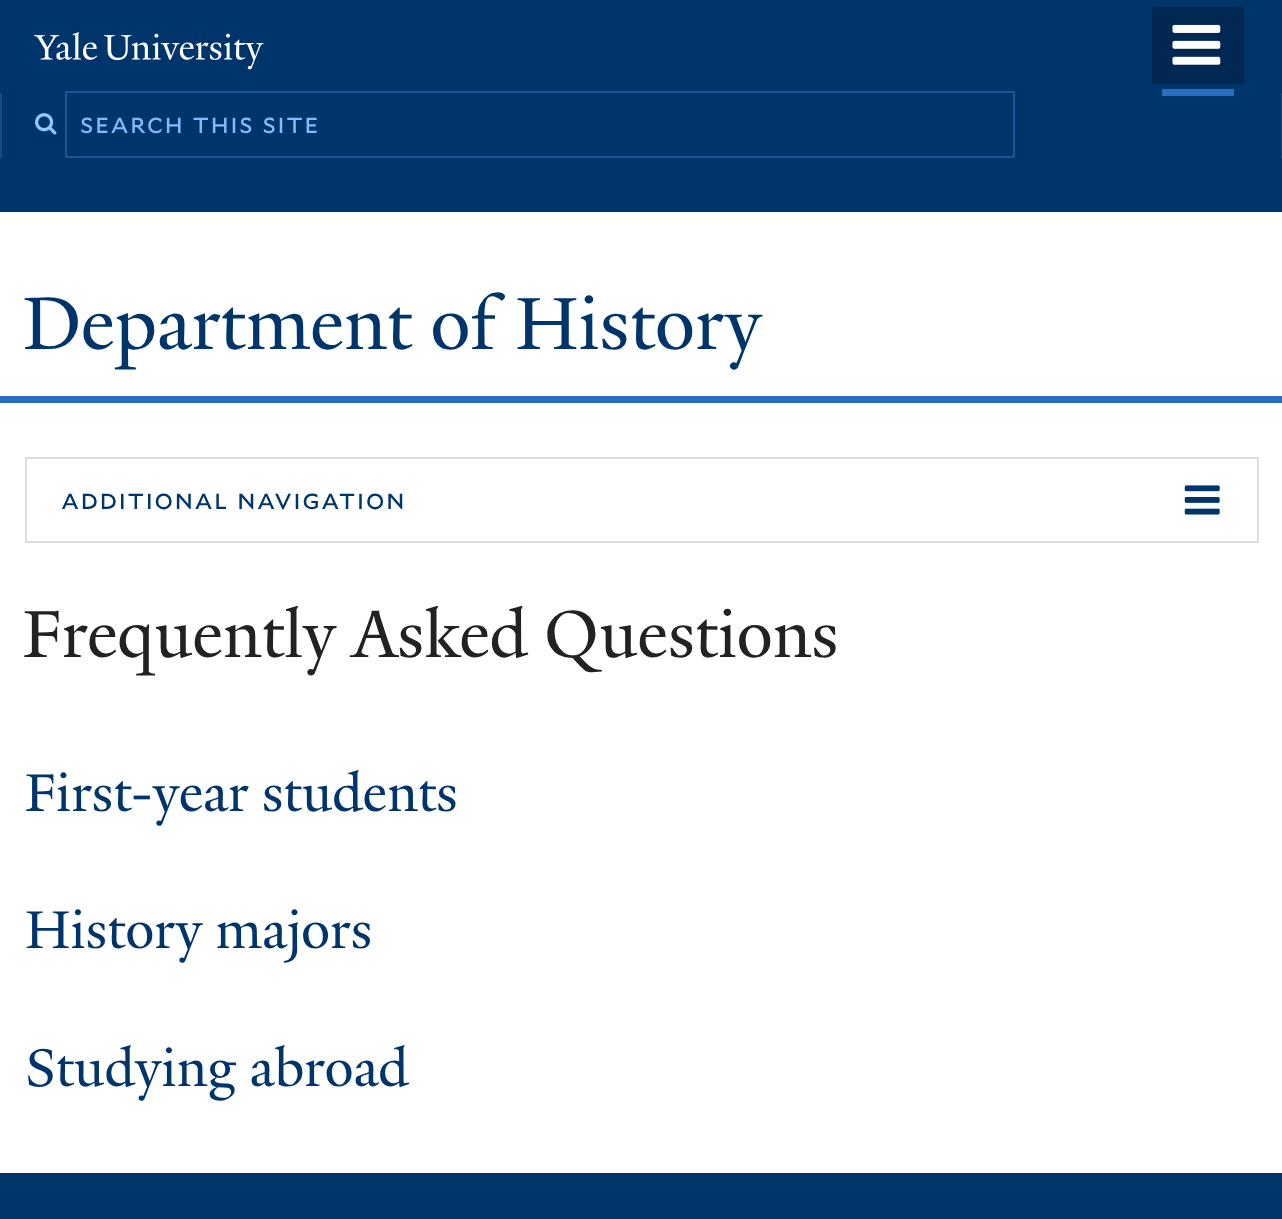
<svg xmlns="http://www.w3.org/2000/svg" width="1282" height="1219">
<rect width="100%" height="100%" fill="#fff"/>
<rect width="1282" height="212" fill="#00356b"/>
<image x="34" y="32" width="64" height="28" href="media/1.png"/>
<image x="104" y="33" width="160" height="37" href="media/2.png"/>
<rect x="1152" y="7" width="92" height="77" fill="#002852"/>
<image x="1172" y="24" width="49" height="41" href="media/3.png"/>
<rect x="1162" y="89" width="72" height="7" fill="#286dc0"/>
<rect x="1281" y="93" width="1" height="65" fill="#1b4981"/>
<rect y="93" width="2" height="65" fill="#1b4981"/>
<image x="35" y="113" width="22" height="22" href="media/4.png"/>
<rect x="66" y="92" width="948" height="65" fill="none" stroke="#1f5596" stroke-width="2"/>
<text x="80" y="133" word-spacing="1" style="font-family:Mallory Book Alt;font-size:27.25px;letter-spacing:1.4px;fill:#82bbfc">search this site</text>
<text x="23" y="349" style="font-family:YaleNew;font-size:80px;fill:#00356b">Department of History</text>
<rect y="396" width="1282" height="7" fill="#286dc0"/>
<rect x="25" y="457" width="1233" height="2" fill="#ddd"/>
<rect x="1257" y="457" width="2" height="86" fill="#ddd"/>
<rect x="25" y="457" width="2" height="86" fill="#ddd"/>
<rect x="26" y="541" width="1231" height="2" fill="#ddd"/>
<text x="61" y="509" word-spacing="1" style="font-family:Mallory Book Alt;font-size:27.25px;letter-spacing:1.4px;fill:#00356b">additional navigation</text>
<image x="1184" y="485" width="36" height="30" href="media/5.png"/>
<text x="23" y="657" style="font-family:YaleNew;font-size:72px;fill:#222">Frequently Asked Questions</text>
<text x="25" y="811" style="font-family:YaleNew;font-size:57.5px;fill:#00356b">First-year students</text>
<text x="25" y="948" style="font-family:YaleNew;font-size:57.5px;fill:#00356b">History majors</text>
<text x="25" y="1086" style="font-family:YaleNew;font-size:57.5px;fill:#00356b">Studying abroad</text>
<rect y="1173" width="1282" height="46" fill="#00356b"/>
</svg>
